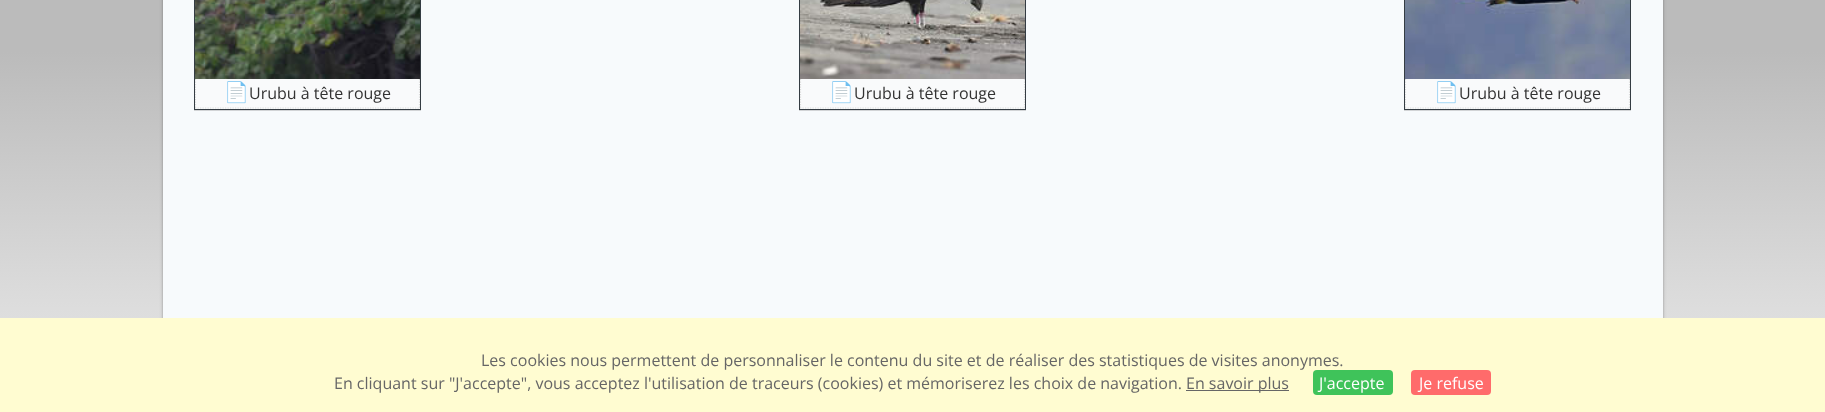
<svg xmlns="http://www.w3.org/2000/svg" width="1825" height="412">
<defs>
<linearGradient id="g1" gradientUnits="userSpaceOnUse" x1="913" y1="-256" x2="913" y2="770"><stop offset="0" stop-color="#bbb"/><stop offset="0.3" stop-color="#bbb"/><stop offset="0.55" stop-color="#ddd"/><stop offset="0.9" stop-color="#fff"/><stop offset="1" stop-color="#fff"/></linearGradient>
<clipPath id="clip1"><rect x="195" width="225" height="109"/></clipPath>
<clipPath id="clip2"><rect x="800" width="225" height="109"/></clipPath>
<clipPath id="clip3"><rect x="1405" width="225" height="109"/></clipPath>
</defs>
<rect width="100%" height="100%" fill="#fff"/>
<rect width="1825" height="318" fill="url(#g1)"/>
<rect x="163" y="-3" width="1500" height="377" fill="#0000003d" filter="blur(1px)"/>
<rect x="163" y="-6" width="1500" height="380" fill="#0000001f" filter="blur(2px)"/>
<rect x="163" width="1500" height="318" fill="#f7fafc"/>
<rect x="194" y="-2" width="227" height="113" fill="#00000026" filter="blur(0.5px)"/>
<rect x="194.5" y="-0.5" width="226" height="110" fill="none" stroke="#343c43"/>
<image x="195" y="0" width="225" height="79" href="media/1.png"/>
<rect x="195" y="79" width="225" height="30" fill="#f9fafb"/>
<g clip-path="url(#clip1)">
<path d="M419.5 79v30" fill="none" stroke="#dadada" stroke-width="1.2" stroke-dasharray="1.25 1.25"/>
</g>
<path d="M195 108h225" fill="none" stroke="#dadada" stroke-width="1.2" stroke-dasharray="1.25 1.25"/>
<g clip-path="url(#clip1)">
<path d="M195.5 79v30" fill="none" stroke="#dadada" stroke-width="1.2" stroke-dasharray="1.25 1.25"/>
</g>
<text x="224" y="99" style="font-family:Noto Color Emoji;font-size:20px;fill:#333">📄</text>
<text x="249" y="99" style="font-family:Open Sans;font-size:16px;fill:#333">Urubu à tête rouge</text>
<rect x="799" y="-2" width="227" height="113" fill="#00000026" filter="blur(0.5px)"/>
<rect x="799.5" y="-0.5" width="226" height="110" fill="none" stroke="#343c43"/>
<image x="800" y="0" width="225" height="79" href="media/2.png"/>
<rect x="800" y="79" width="225" height="30" fill="#f9fafb"/>
<g clip-path="url(#clip2)">
<path d="M1024.5 79v30" fill="none" stroke="#dadada" stroke-width="1.2" stroke-dasharray="1.25 1.25"/>
</g>
<path d="M800 108h225" fill="none" stroke="#dadada" stroke-width="1.2" stroke-dasharray="1.25 1.25"/>
<g clip-path="url(#clip2)">
<path d="M800.5 79v30" fill="none" stroke="#dadada" stroke-width="1.2" stroke-dasharray="1.25 1.25"/>
</g>
<text x="829" y="99" style="font-family:Noto Color Emoji;font-size:20px;fill:#333">📄</text>
<text x="854" y="99" style="font-family:Open Sans;font-size:16px;fill:#333">Urubu à tête rouge</text>
<rect x="1404" y="-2" width="227" height="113" fill="#00000026" filter="blur(0.5px)"/>
<rect x="1404.5" y="-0.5" width="226" height="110" fill="none" stroke="#343c43"/>
<image x="1405" y="0" width="225" height="79" href="media/3.png"/>
<rect x="1405" y="79" width="225" height="30" fill="#f9fafb"/>
<g clip-path="url(#clip3)">
<path d="M1629.5 79v30" fill="none" stroke="#dadada" stroke-width="1.2" stroke-dasharray="1.25 1.25"/>
</g>
<path d="M1405 108h225" fill="none" stroke="#dadada" stroke-width="1.2" stroke-dasharray="1.25 1.25"/>
<g clip-path="url(#clip3)">
<path d="M1405.5 79v30" fill="none" stroke="#dadada" stroke-width="1.2" stroke-dasharray="1.25 1.25"/>
</g>
<text x="1434" y="99" style="font-family:Noto Color Emoji;font-size:20px;fill:#333">📄</text>
<text x="1459" y="99" style="font-family:Open Sans;font-size:16px;fill:#333">Urubu à tête rouge</text>
<rect y="318" width="1825" height="94" fill="#fffcd1"/>
<text x="481" y="366" style="font-family:Open Sans;font-size:16px;fill:#666">Les cookies nous permettent de personnaliser le contenu du site et de réaliser des statistiques de visites anonymes.</text>
<text x="334" y="389" style="font-family:Open Sans;font-size:16px;fill:#666">En cliquant sur "J'accepte", vous acceptez l'utilisation de traceurs (cookies) et mémoriserez les choix de navigation.</text>
<rect x="1186" y="390" width="103" height="1" fill="#666"/>
<text x="1186" y="389" style="font-family:Open Sans;font-size:16px;fill:#666">En savoir plus</text>
<rect x="1313" y="370" width="80" height="25" rx="4" fill="#3fc35a"/>
<text x="1319" y="389" style="font-family:Open Sans;font-size:16px;fill:#fff">J'accepte</text>
<rect x="1411" y="370" width="80" height="25" rx="4" fill="#ff6b6b"/>
<text x="1419" y="389" style="font-family:Open Sans;font-size:16px;fill:#fff">Je refuse</text>
</svg>
